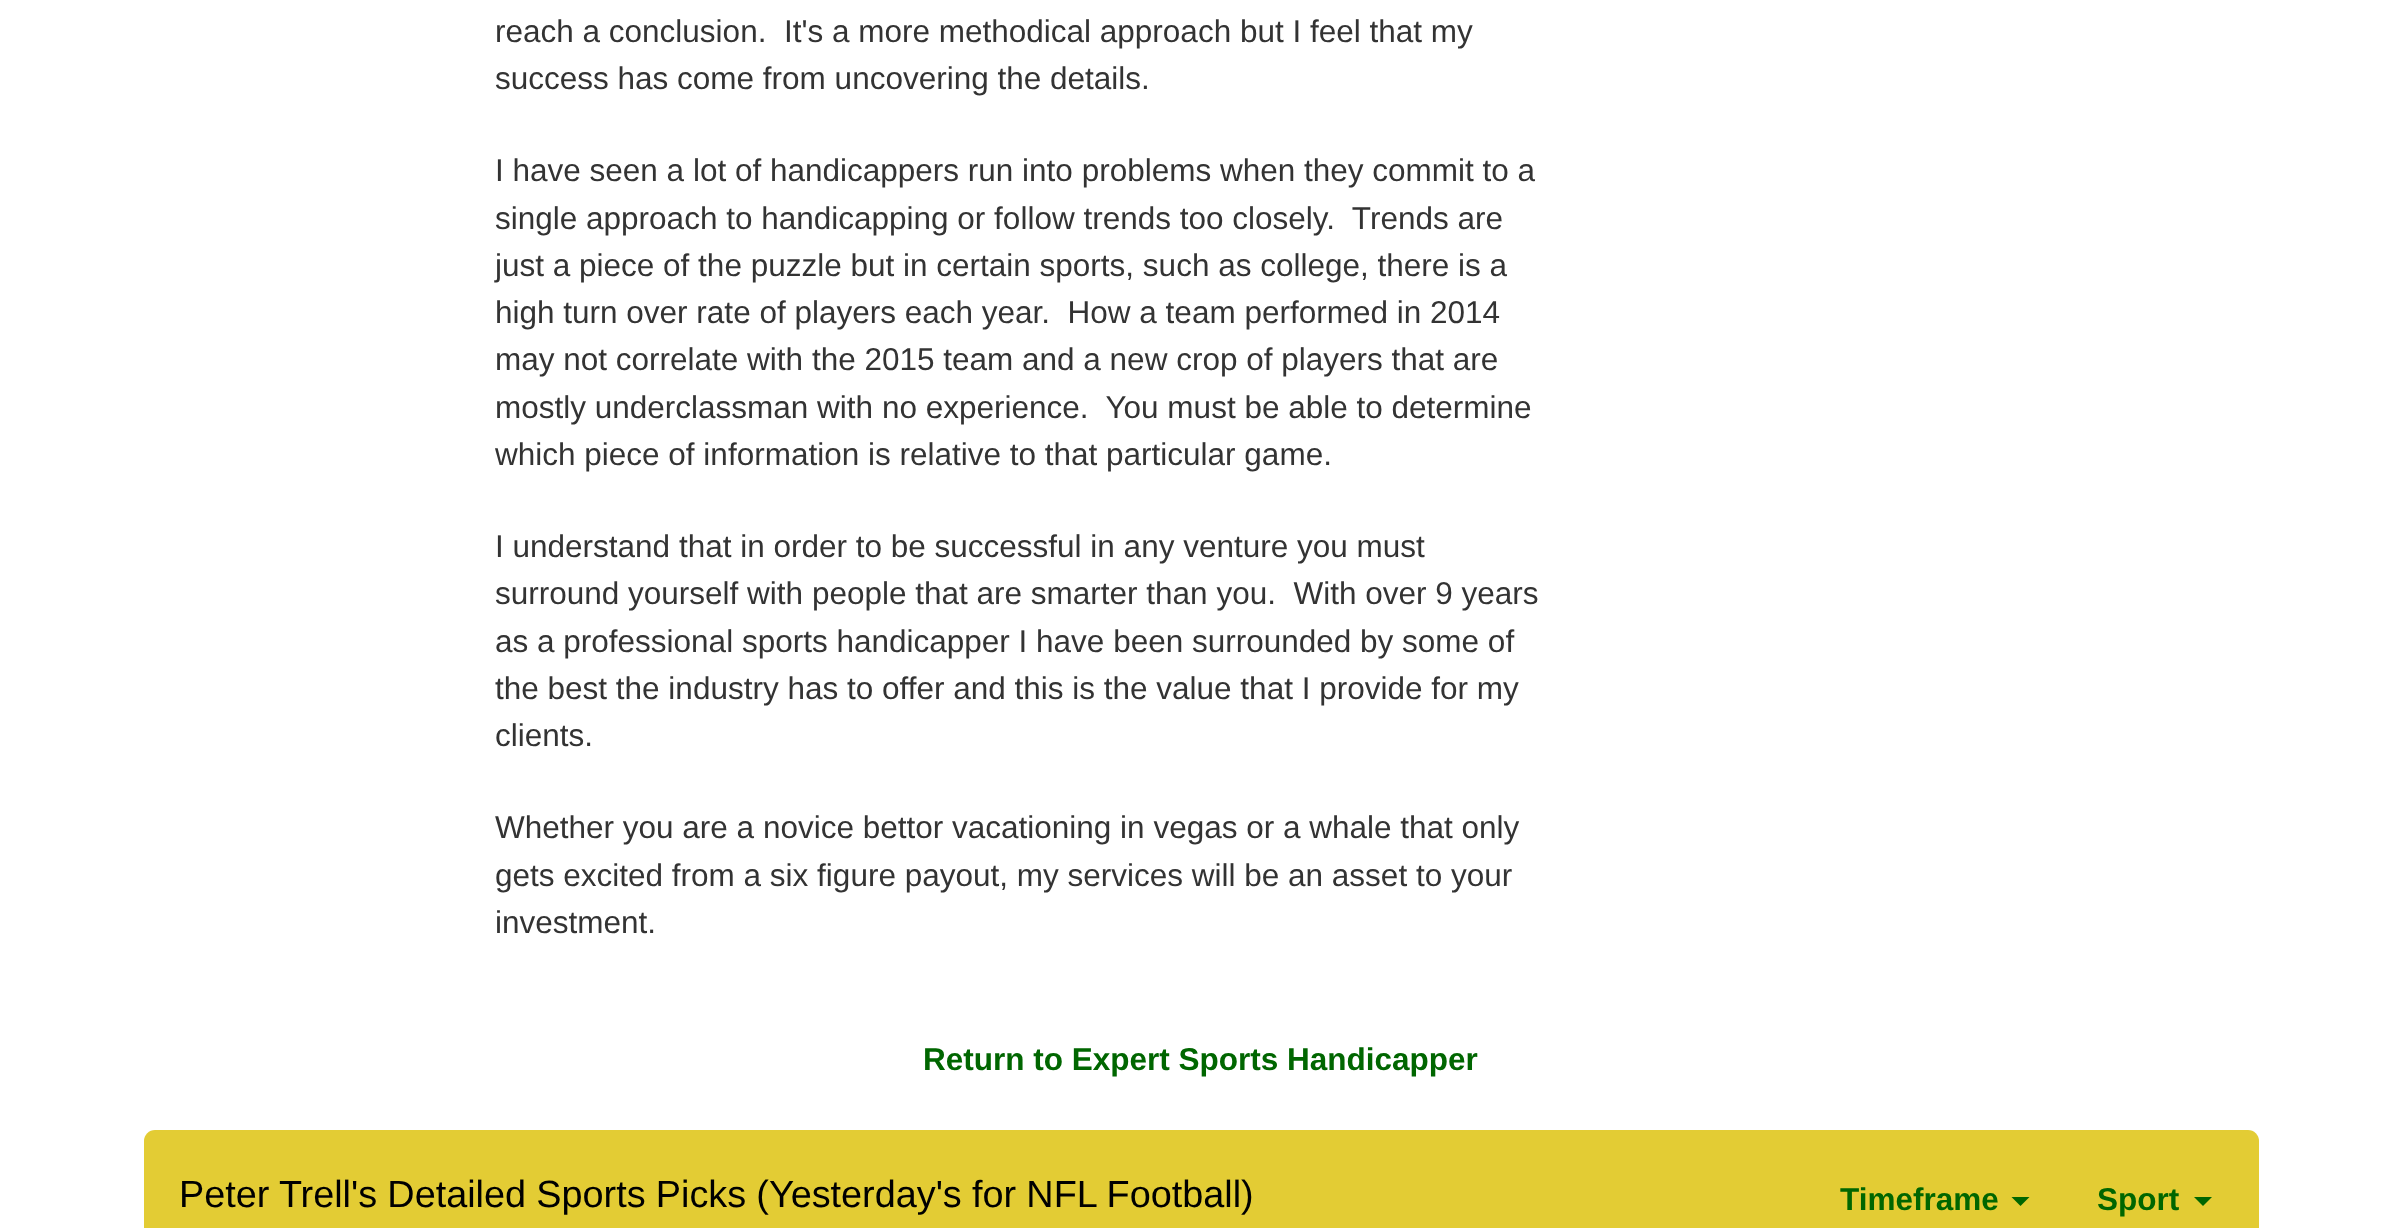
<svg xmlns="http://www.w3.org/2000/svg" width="2400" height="1228">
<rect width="100%" height="100%" fill="#fff"/>
<text x="495" y="42" style="font-family:Liberation Sans;font-size:31.5px;fill:#333" xml:space="preserve">reach a conclusion.  It's a more methodical approach but I feel that my</text>
<text x="495" y="89" style="font-family:Liberation Sans;font-size:31.5px;fill:#333">success has come from uncovering the details.</text>
<text x="495" y="181" style="font-family:Liberation Sans;font-size:31.5px;fill:#333">I have seen a lot of handicappers run into problems when they commit to a</text>
<text x="495" y="229" style="font-family:Liberation Sans;font-size:31.5px;fill:#333" xml:space="preserve">single approach to handicapping or follow trends too closely.  Trends are</text>
<text x="495" y="276" style="font-family:Liberation Sans;font-size:31.5px;fill:#333">just a piece of the puzzle but in certain sports, such as college, there is a</text>
<text x="495" y="323" style="font-family:Liberation Sans;font-size:31.5px;fill:#333" xml:space="preserve">high turn over rate of players each year.  How a team performed in 2014</text>
<text x="495" y="370" style="font-family:Liberation Sans;font-size:31.5px;fill:#333">may not correlate with the 2015 team and a new crop of players that are</text>
<text x="495" y="418" style="font-family:Liberation Sans;font-size:31.5px;fill:#333" xml:space="preserve">mostly underclassman with no experience.  You must be able to determine</text>
<text x="495" y="465" style="font-family:Liberation Sans;font-size:31.5px;fill:#333">which piece of information is relative to that particular game.</text>
<text x="495" y="557" style="font-family:Liberation Sans;font-size:31.5px;fill:#333">I understand that in order to be successful in any venture you must</text>
<text x="495" y="604" style="font-family:Liberation Sans;font-size:31.5px;fill:#333" xml:space="preserve">surround yourself with people that are smarter than you.  With over 9 years</text>
<text x="495" y="652" style="font-family:Liberation Sans;font-size:31.5px;fill:#333">as a professional sports handicapper I have been surrounded by some of</text>
<text x="495" y="699" style="font-family:Liberation Sans;font-size:31.5px;fill:#333">the best the industry has to offer and this is the value that I provide for my</text>
<text x="495" y="746" style="font-family:Liberation Sans;font-size:31.5px;fill:#333">clients.</text>
<text x="495" y="838" style="font-family:Liberation Sans;font-size:31.5px;fill:#333">Whether you are a novice bettor vacationing in vegas or a whale that only</text>
<text x="495" y="886" style="font-family:Liberation Sans;font-size:31.5px;fill:#333">gets excited from a six figure payout, my services will be an asset to your</text>
<text x="495" y="933" style="font-family:Liberation Sans;font-size:31.5px;fill:#333">investment.</text>
<text x="923" y="1070" style="font-family:Liberation Sans;font-size:31.5px;font-weight:bold;fill:#060">Return to Expert Sports Handicapper</text>
<rect x="144" y="1130" width="2115" height="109" rx="11" fill="#e3cc34"/>
<text x="179" y="1207" word-spacing="-0.25" style="font-family:Liberation Sans;font-size:37.8px;fill:#000">Peter Trell's Detailed Sports Picks (Yesterday's for NFL Football)</text>
<text x="1840" y="1210" style="font-family:Liberation Sans;font-size:31.5px;font-weight:bold;fill:#060">Timeframe</text>
<path d="M2011.5 1197h18l-9 9z" fill="#060"/>
<text x="2097" y="1210" style="font-family:Liberation Sans;font-size:31.5px;font-weight:bold;fill:#060">Sport</text>
<path d="M2194 1197h18l-9 9z" fill="#060"/>
</svg>
